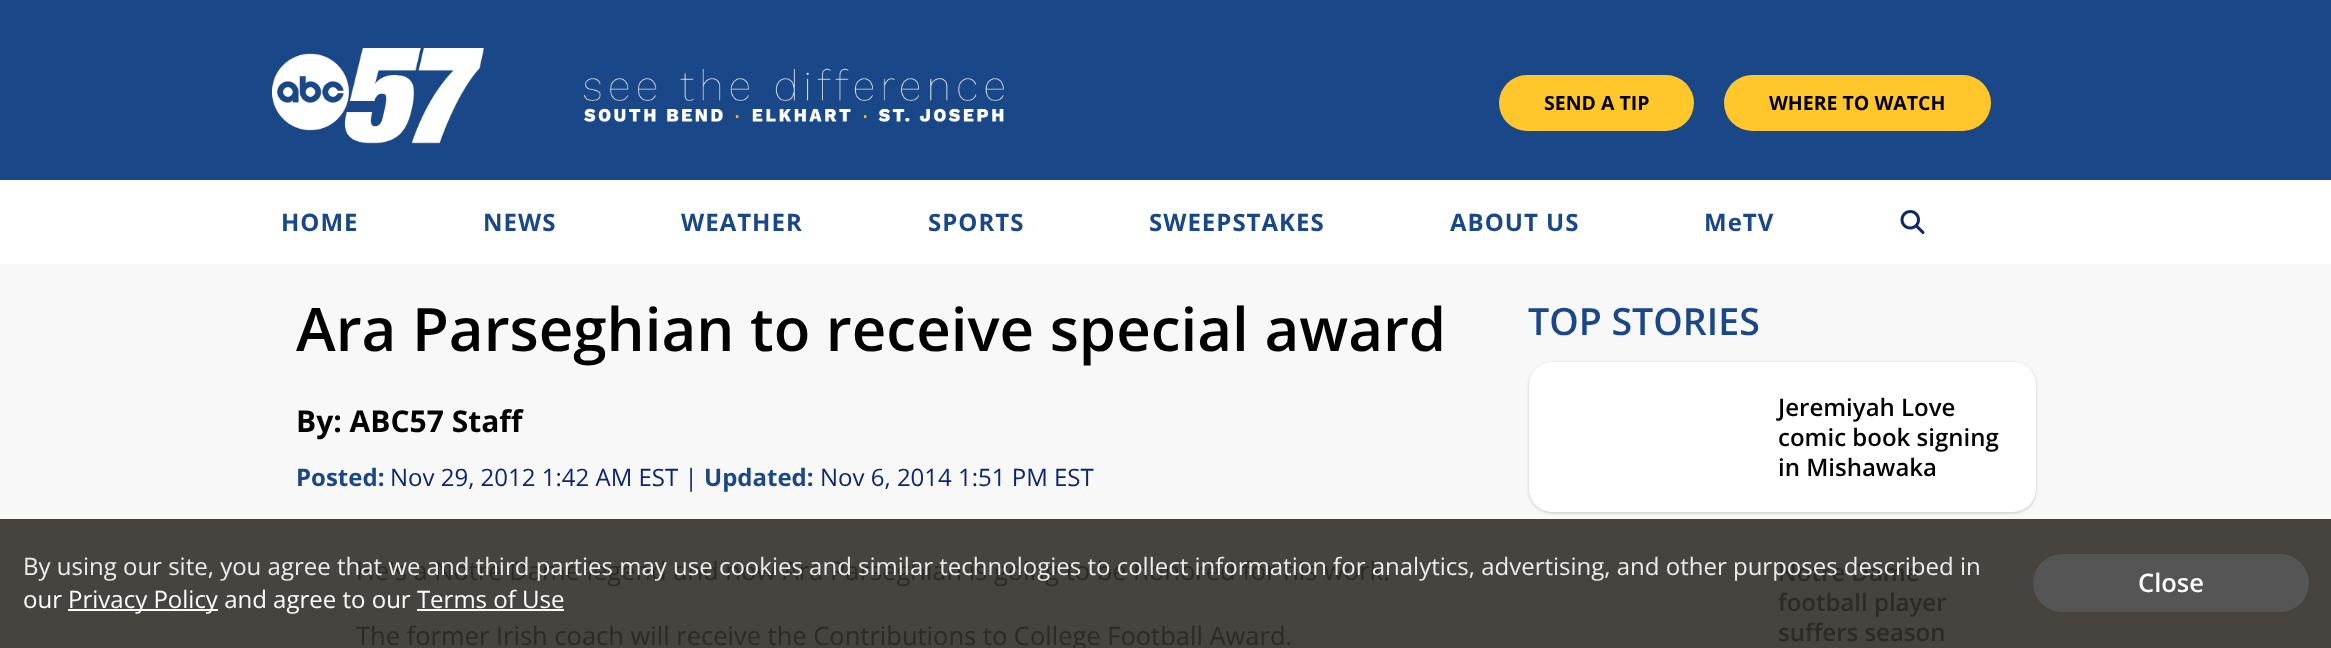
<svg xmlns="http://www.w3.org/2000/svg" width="2331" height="648">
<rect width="100%" height="100%" fill="#f8f8f8"/>
<rect y="519" width="2331" height="129" fill="#47433e"/>
<rect width="2331" height="180" fill="#194787"/>
<image x="272" y="48" width="732" height="96" href="media/1.png"/>
<rect x="1499" y="75" width="195" height="56" rx="28" fill="#ffc72c"/>
<text x="1544" y="110" style="font-family:Open Sans;font-size:19.5px;font-weight:bold;fill:#000">SEND A TIP</text>
<rect x="1724" y="75" width="267" height="56" rx="28" fill="#ffc72c"/>
<text x="1769" y="110" style="font-family:Open Sans;font-size:19.5px;font-weight:bold;fill:#000">WHERE TO WATCH</text>
<rect y="180" width="2331" height="84" fill="#fff"/>
<text x="281" y="231" style="font-family:Open Sans;font-size:24px;font-weight:bold;letter-spacing:1px;fill:#194787">HOME</text>
<text x="483" y="231" style="font-family:Open Sans;font-size:24px;font-weight:bold;letter-spacing:1px;fill:#194787">NEWS</text>
<text x="681" y="231" style="font-family:Open Sans;font-size:24px;font-weight:bold;letter-spacing:1px;fill:#194787">WEATHER</text>
<text x="928" y="231" style="font-family:Open Sans;font-size:24px;font-weight:bold;letter-spacing:1px;fill:#194787">SPORTS</text>
<text x="1149" y="231" style="font-family:Open Sans;font-size:24px;font-weight:bold;letter-spacing:1px;fill:#194787">SWEEPSTAKES</text>
<text x="1450" y="231" style="font-family:Open Sans;font-size:24px;font-weight:bold;letter-spacing:1px;fill:#194787">ABOUT US</text>
<text x="1704" y="231" style="font-family:Open Sans;font-size:24px;font-weight:bold;letter-spacing:1px;fill:#194787">MeTV</text>
<image x="1900" y="210" width="25" height="24" href="media/2.png"/>
<text x="296" y="351" style="font-family:Open Sans;font-size:60px;font-weight:600;fill:#000">Ara Parseghian to receive special award</text>
<text x="296" y="432" style="font-family:Open Sans;font-size:30px;font-weight:bold;fill:#000">By: ABC57 Staff</text>
<text x="296" y="486" style="font-family:Open Sans;font-size:24px;font-weight:bold;fill:#194787">Posted:</text>
<text x="390" y="486" style="font-family:Open Sans;font-size:24px;fill:#0d246f">Nov 29, 2012 1:42 AM EST |</text>
<text x="704" y="486" style="font-family:Open Sans;font-size:24px;font-weight:bold;fill:#194787">Updated:</text>
<text x="820" y="486" style="font-family:Open Sans;font-size:24px;fill:#0d246f">Nov 6, 2014 1:51 PM EST</text>
<text x="356" y="580" style="font-family:Open Sans;font-size:25.5px;fill:#2e2a25">He's a Notre Dame legend and now Ara Parseghian is going to be honored for his work.</text>
<text x="356" y="645" style="font-family:Open Sans;font-size:25.5px;fill:#2e2a25">The former Irish coach will receive the Contributions to College Football Award.</text>
<text x="1528" y="335" style="font-family:Open Sans;font-size:37.5px;font-weight:600;fill:#194787">TOP STORIES</text>
<rect x="1529" y="363" width="507" height="150" rx="23" fill="#00000033" filter="blur(1.5px)"/>
<rect x="1529" y="362" width="507" height="150" rx="23" fill="#fff"/>
<text x="1778" y="416" style="font-family:Open Sans;font-size:24px;font-weight:600;fill:#000">Jeremiyah Love</text>
<text x="1778" y="446" style="font-family:Open Sans;font-size:24px;font-weight:600;fill:#000">comic book signing</text>
<text x="1778" y="476" style="font-family:Open Sans;font-size:24px;font-weight:600;fill:#000">in Mishawaka</text>
<text x="1778" y="581" style="font-family:Open Sans;font-size:24px;font-weight:600;fill:#2e2a25">Notre Dame</text>
<text x="1778" y="611" style="font-family:Open Sans;font-size:24px;font-weight:600;fill:#2e2a25">football player</text>
<text x="1778" y="641" style="font-family:Open Sans;font-size:24px;font-weight:600;fill:#2e2a25">suffers season</text>
<text x="23" y="575" style="font-family:Open Sans;font-size:24px;fill:#ececeb">By using our site, you agree that we and third parties may use cookies and similar technologies to collect information for analytics, advertising, and other purposes described in</text>
<text x="23" y="608" style="font-family:Open Sans;font-size:24px;fill:#fefefe">our</text>
<rect x="68" y="609" width="150" height="2" fill="#fefefe"/>
<text x="68" y="608" style="font-family:Open Sans;font-size:24px;fill:#fefefe">Privacy Policy and agree to our Terms of Use</text>
<rect x="417" y="609" width="147" height="2" fill="#fefefe"/>
<rect x="2033" y="554" width="276" height="58" rx="29" fill="#585858e6"/>
<text x="2138" y="592" style="font-family:Open Sans;font-size:25.5px;font-weight:600;fill:#fefefe">Close</text>
</svg>
